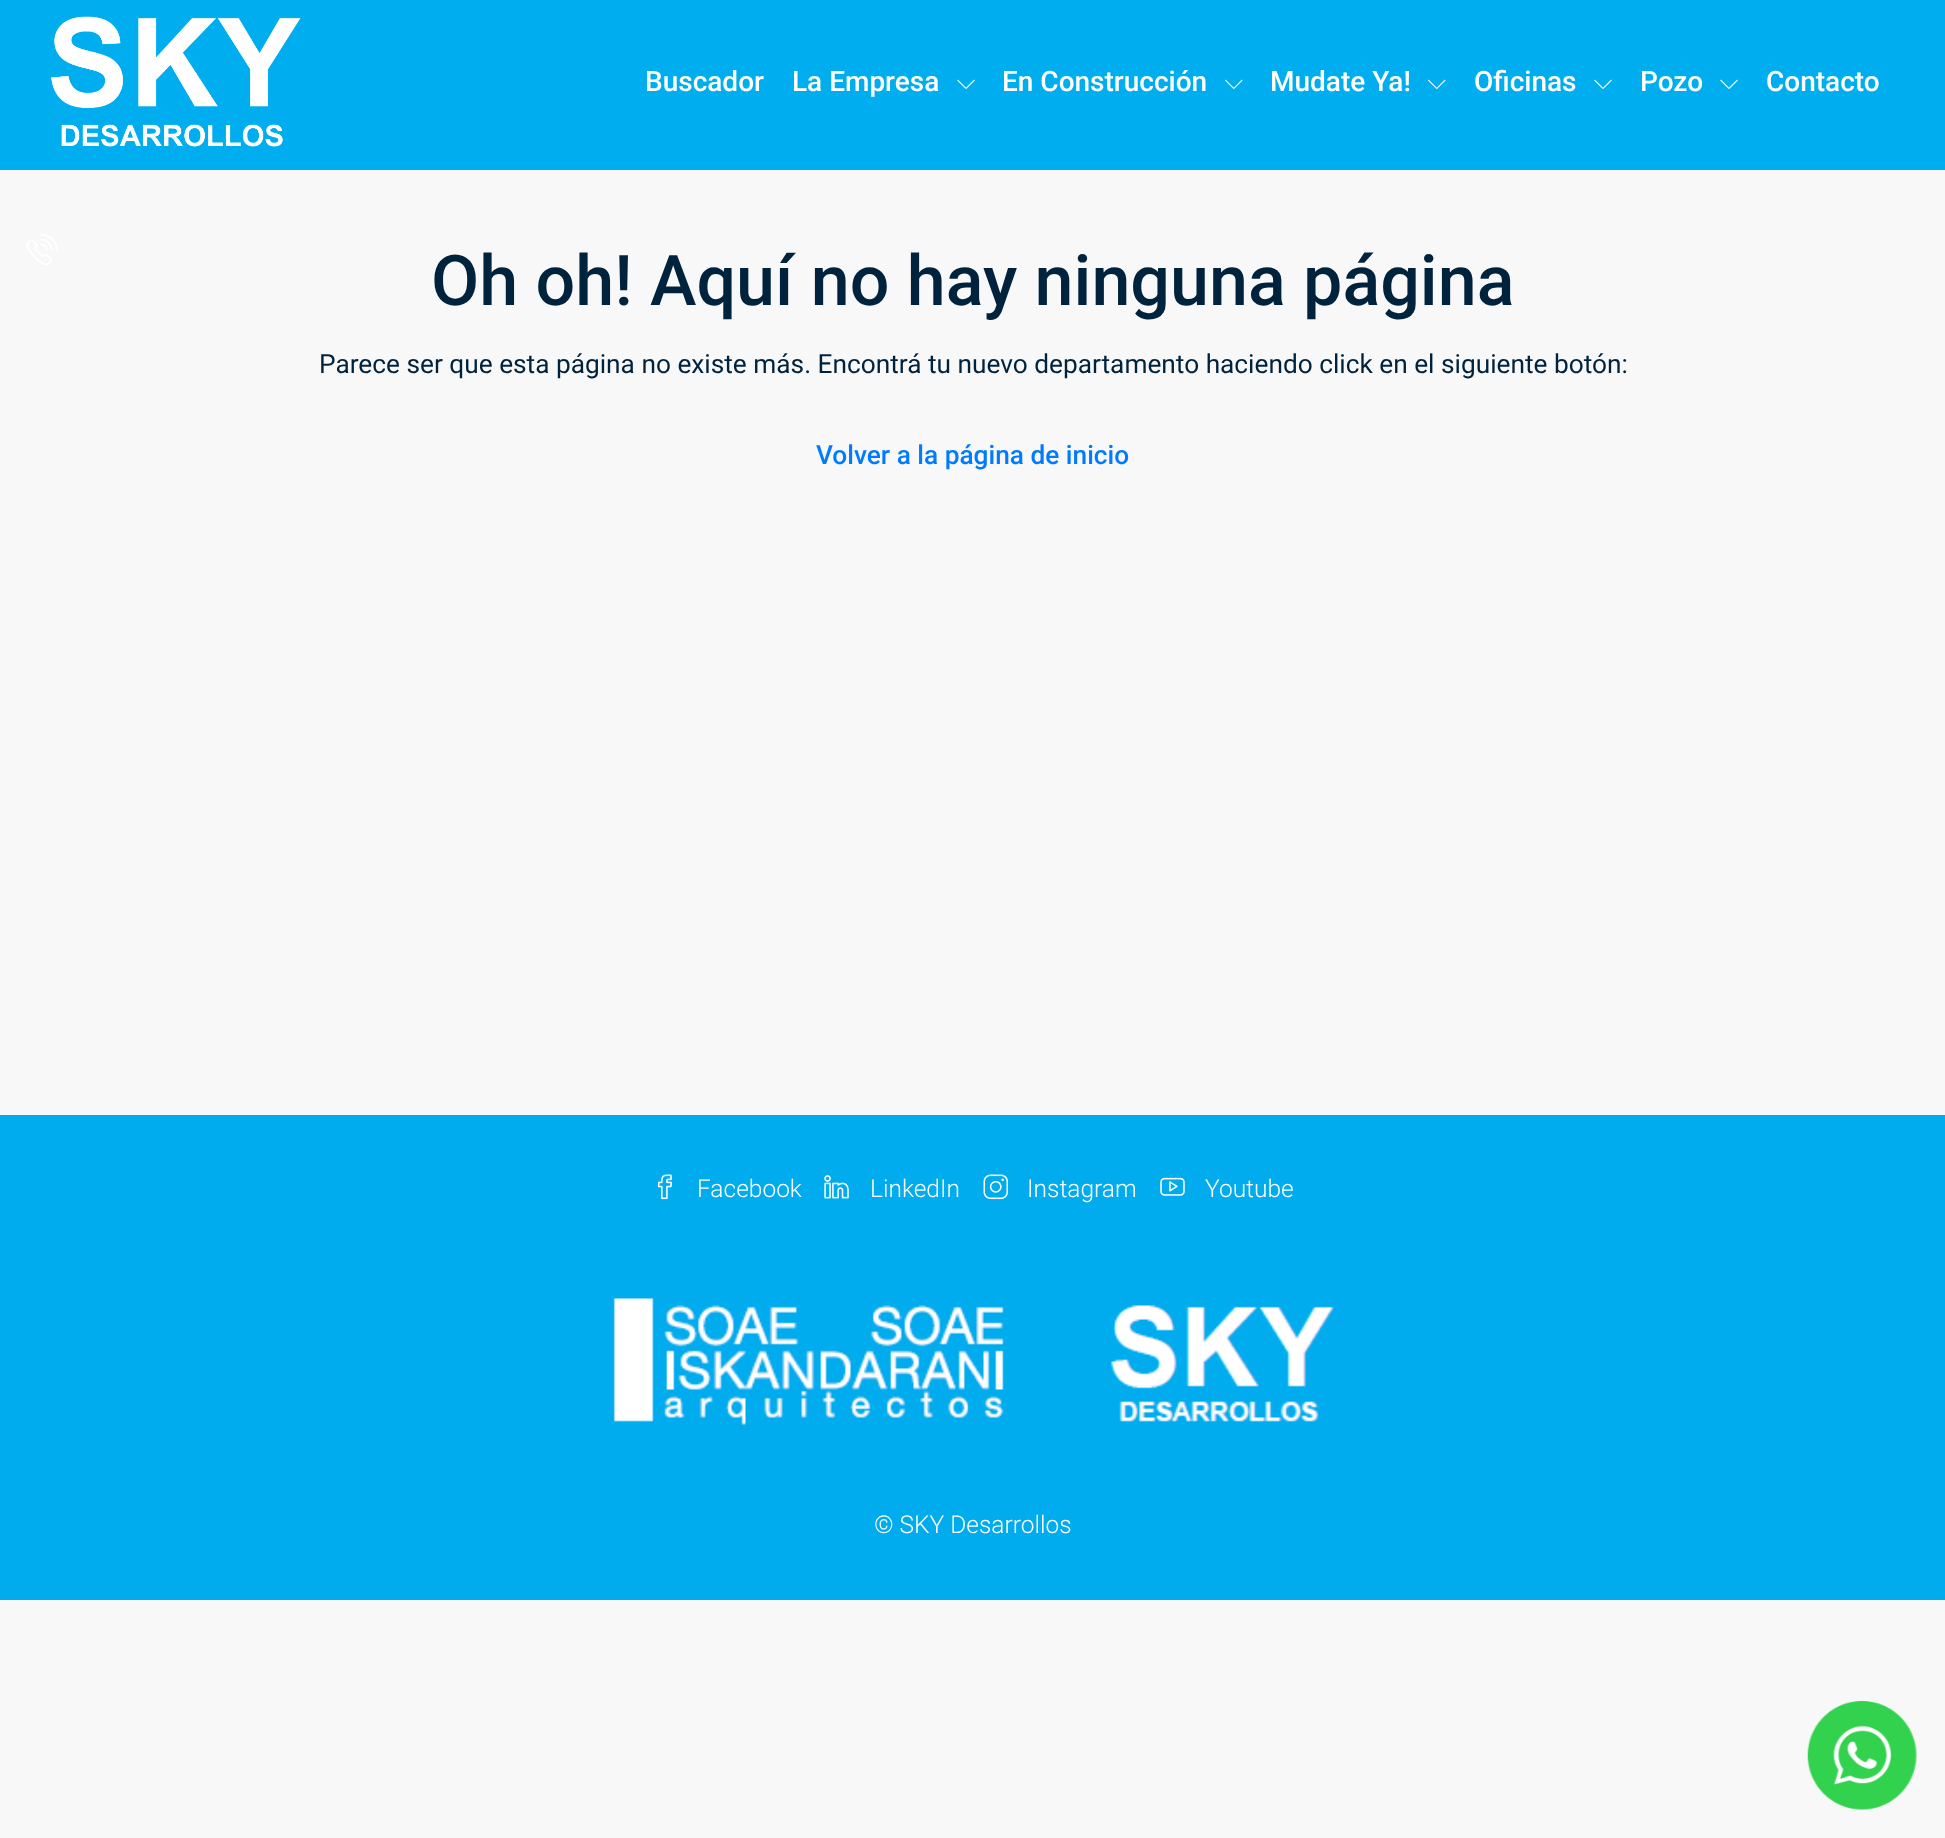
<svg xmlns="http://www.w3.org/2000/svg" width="1945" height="1838">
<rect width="100%" height="100%" fill="#f8f8f8"/>
<rect width="1945" height="170" fill="#00aeef"/>
<image x="51" y="16" width="250" height="131" href="media/1.png"/>
<text x="645" y="91" style="font-family:Roboto;font-size:28px;font-weight:500;fill:#fff">Buscador</text>
<text x="792" y="91" style="font-family:Roboto;font-size:28px;font-weight:500;fill:#fff">La Empresa</text>
<image x="957" y="79" width="18" height="10" href="media/2.png"/>
<text x="1002" y="91" style="font-family:Roboto;font-size:28px;font-weight:500;fill:#fff">En Construcción</text>
<image x="1225" y="79" width="18" height="10" href="media/3.png"/>
<text x="1270" y="91" style="font-family:Roboto;font-size:28px;font-weight:500;fill:#fff">Mudate Ya!</text>
<image x="1428" y="79" width="18" height="10" href="media/3.png"/>
<text x="1474" y="91" style="font-family:Roboto;font-size:28px;font-weight:500;fill:#fff">Oficinas</text>
<image x="1594" y="79" width="18" height="10" href="media/2.png"/>
<text x="1640" y="91" style="font-family:Roboto;font-size:28px;font-weight:500;fill:#fff">Pozo</text>
<image x="1720" y="79" width="18" height="10" href="media/2.png"/>
<text x="1766" y="91" style="font-family:Roboto;font-size:28px;font-weight:500;fill:#fff">Contacto</text>
<image x="26" y="234" width="32" height="31" href="media/4.png"/>
<text x="431" y="305" style="font-family:Roboto;font-size:70px;font-weight:500;fill:#00233d">Oh oh! Aquí no hay ninguna página</text>
<text x="319" y="373" style="font-family:Roboto;font-size:26.25px;fill:#00233d">Parece ser que esta página no existe más. Encontrá tu nuevo departamento haciendo click en el siguiente botón:</text>
<text x="816" y="464" style="font-family:Roboto;font-size:26.25px;font-weight:500;fill:#007bff">Volver a la página de inicio</text>
<rect y="1115" width="1945" height="485" fill="#00acee"/>
<image x="657" y="1174" width="15" height="26" href="media/5.png"/>
<text x="697" y="1197" style="font-family:Roboto;font-size:24.5px;font-weight:300;fill:#fff">Facebook</text>
<image x="824" y="1175" width="25" height="24" href="media/6.png"/>
<text x="870" y="1197" style="font-family:Roboto;font-size:24.5px;font-weight:300;fill:#fff">LinkedIn</text>
<image x="983" y="1174" width="25" height="26" href="media/7.png"/>
<text x="1027" y="1197" style="font-family:Roboto;font-size:24.5px;font-weight:300;fill:#fff">Instagram</text>
<image x="1160" y="1177" width="25" height="19" href="media/8.png"/>
<text x="1205" y="1197" style="font-family:Roboto;font-size:24.5px;font-weight:300;fill:#fff">Youtube</text>
<image x="613" y="1298" width="721" height="127" href="media/9.png"/>
<text x="874" y="1533" style="font-family:Roboto;font-size:24.5px;font-weight:300;fill:#fff">© SKY Desarrollos</text>
<image x="1807" y="1701" width="110" height="109" href="media/10.png"/>
</svg>
